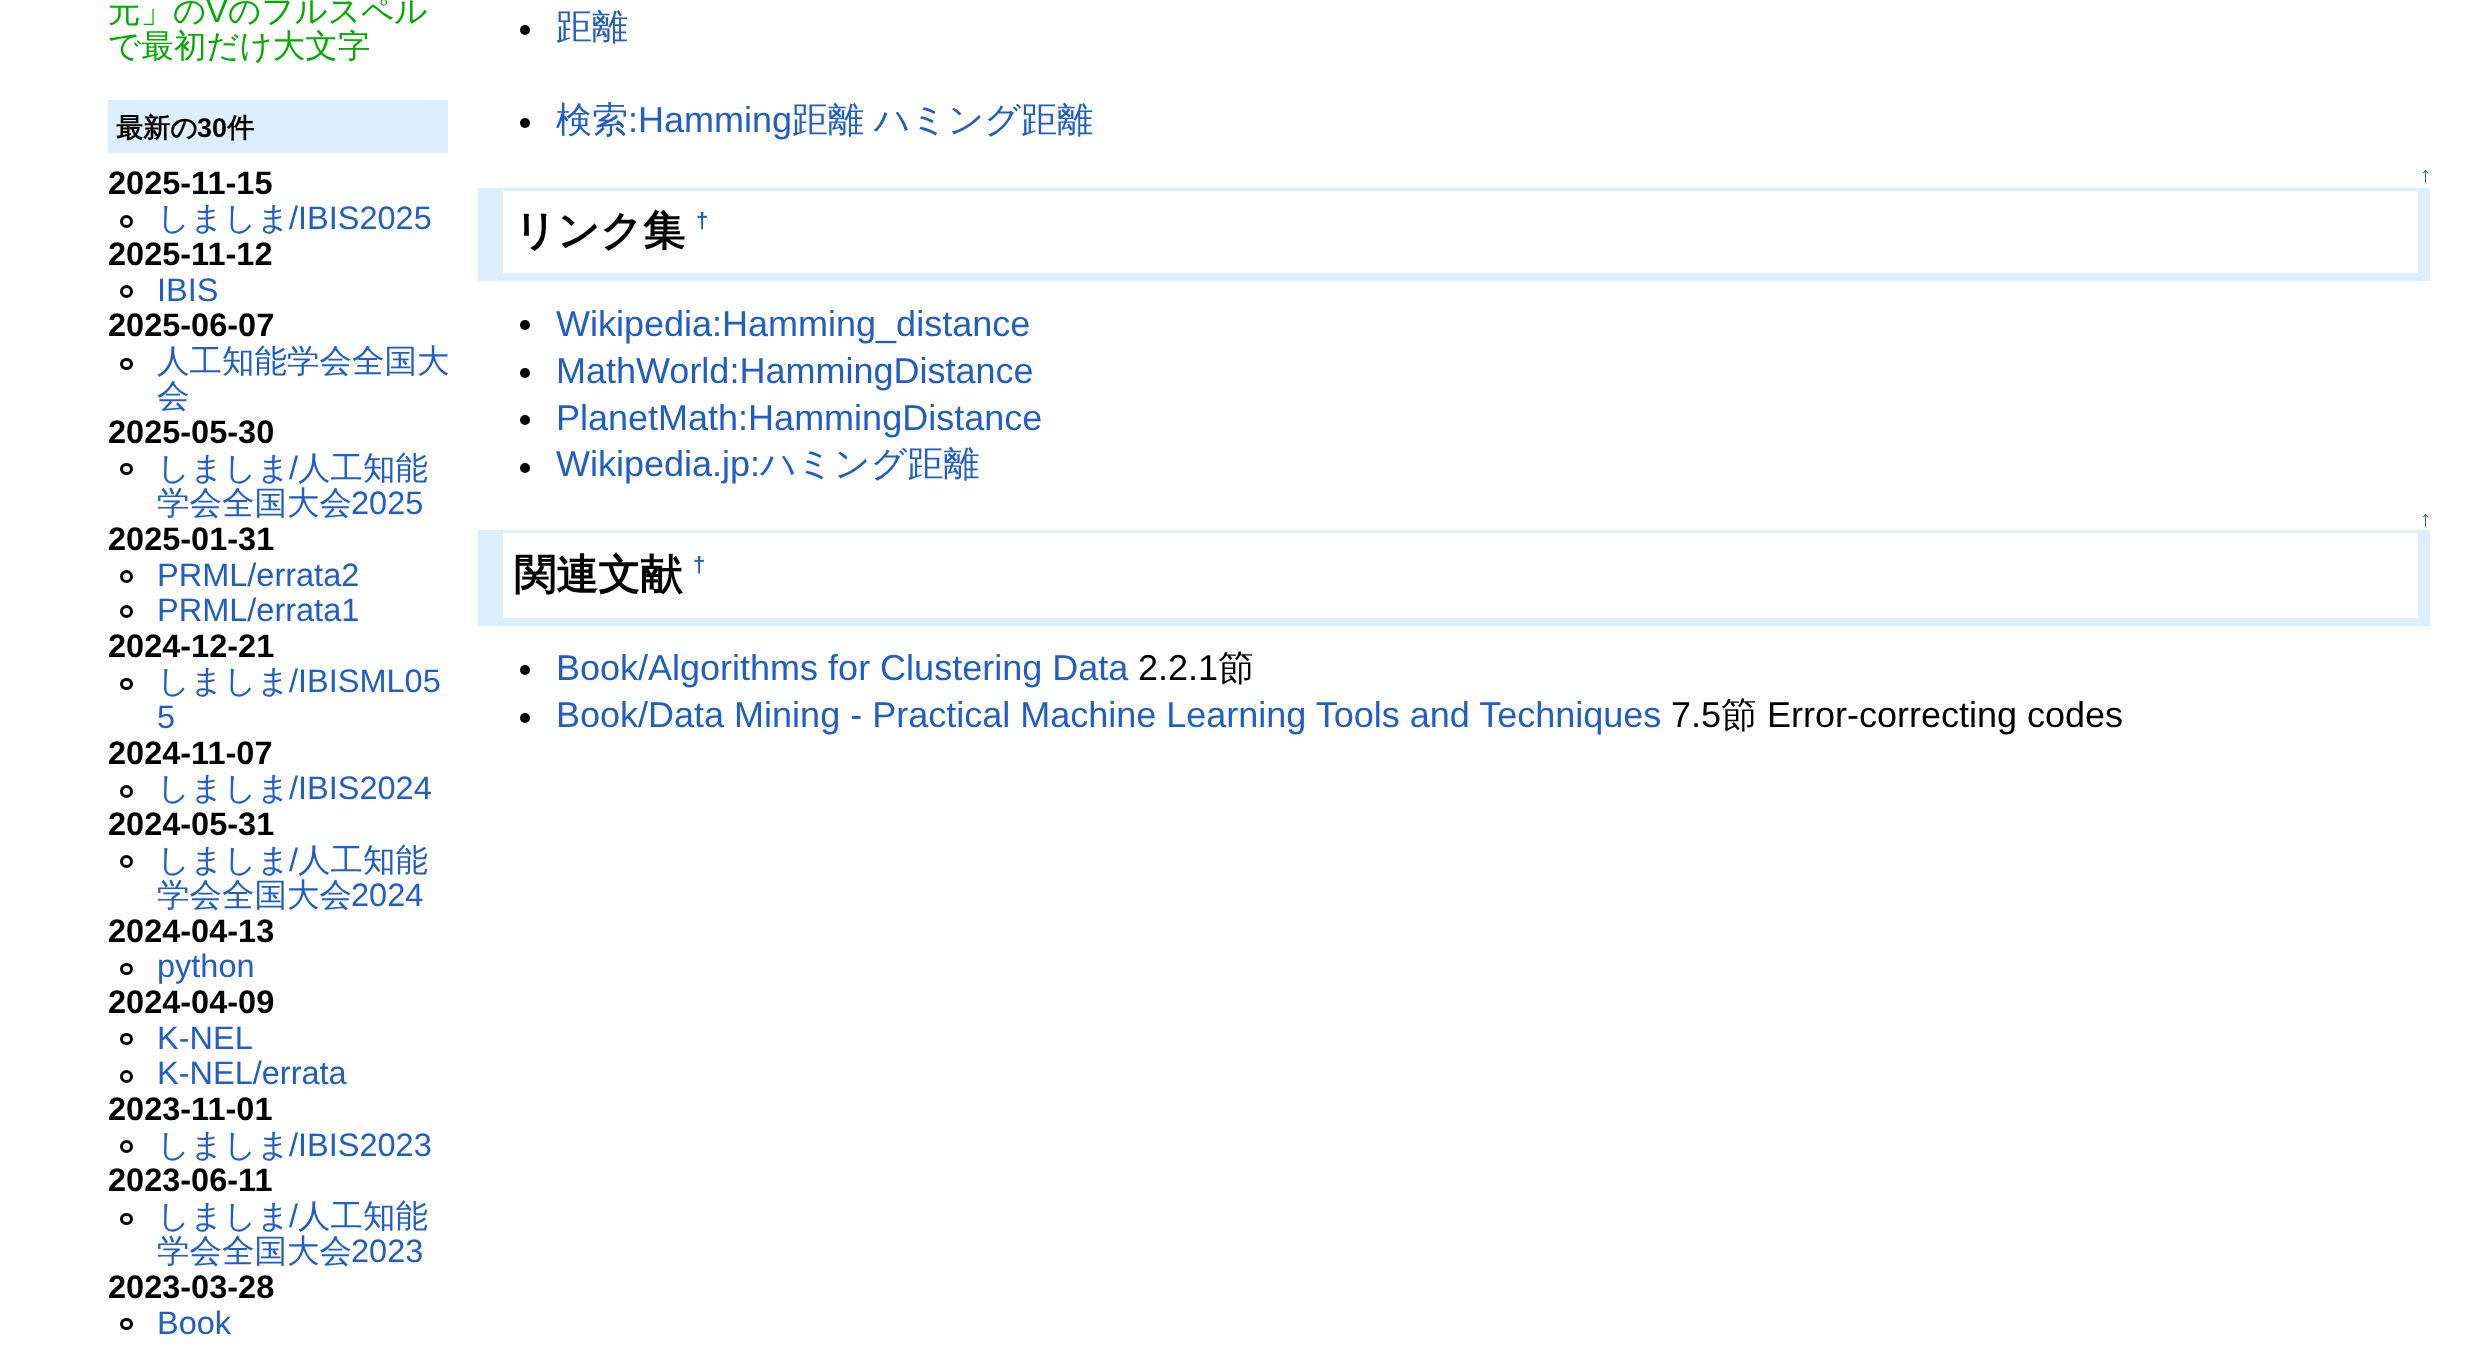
<svg xmlns="http://www.w3.org/2000/svg" width="2480" height="1346">
<rect width="100%" height="100%" fill="#fff"/>
<text x="108" y="22" style="font-family:WenQuanYi Zen Hei;font-size:32.5px;font-weight:500;fill:#0a0">元」の</text>
<text x="206" y="22" style="font-family:Liberation Sans;font-size:32.5px;fill:#0a0">V</text>
<text x="228" y="22" style="font-family:WenQuanYi Zen Hei;font-size:32.5px;font-weight:500;fill:#0a0">のフルスペル</text>
<text x="108" y="57" style="font-family:WenQuanYi Zen Hei;font-size:32.5px;font-weight:500;fill:#0a0">で最初だけ大文字</text>
<rect x="108" y="100" width="340" height="53" fill="#def"/>
<text x="116" y="137" style="font-family:WenQuanYi Zen Hei;font-size:27px;font-weight:bold;fill:#000">最新の</text>
<text x="197" y="137" style="font-family:Liberation Sans;font-size:27px;font-weight:bold;fill:#000">30</text>
<text x="227" y="137" style="font-family:WenQuanYi Zen Hei;font-size:27px;font-weight:bold;fill:#000">件</text>
<text x="108" y="194" style="font-family:Liberation Sans;font-size:32.5px;font-weight:bold;fill:#000">2025-11-15</text>
<circle cx="126.5" cy="221.5" r="5" fill="none" stroke="#000" stroke-width="3"/>
<text x="157" y="229" style="font-family:WenQuanYi Zen Hei;font-size:32.5px;font-weight:500;fill:#215dc6">しましま</text>
<text x="289" y="229" style="font-family:Liberation Sans;font-size:32.5px;fill:#215dc6">/IBIS2025</text>
<text x="108" y="265" style="font-family:Liberation Sans;font-size:32.5px;font-weight:bold;fill:#000">2025-11-12</text>
<circle cx="126.5" cy="291.5" r="5" fill="none" stroke="#000" stroke-width="3"/>
<text x="157" y="301" style="font-family:Liberation Sans;font-size:32.5px;fill:#215dc6">IBIS</text>
<text x="108" y="336" style="font-family:Liberation Sans;font-size:32.5px;font-weight:bold;fill:#000">2025-06-07</text>
<rect x="121.5" y="359.5" width="10" height="9" rx="4.5" fill="none" stroke="#000" stroke-width="3"/>
<text x="157" y="372" style="font-family:WenQuanYi Zen Hei;font-size:32.5px;font-weight:500;fill:#215dc6">人工知能学会全国大</text>
<text x="157" y="407" style="font-family:WenQuanYi Zen Hei;font-size:32.5px;font-weight:500;fill:#215dc6">会</text>
<text x="108" y="443" style="font-family:Liberation Sans;font-size:32.5px;font-weight:bold;fill:#000">2025-05-30</text>
<rect x="121.5" y="464.5" width="10" height="9" rx="4.5" fill="none" stroke="#000" stroke-width="3"/>
<text x="157" y="479" style="font-family:WenQuanYi Zen Hei;font-size:32.5px;font-weight:500;fill:#215dc6">しましま</text>
<text x="289" y="479" style="font-family:Liberation Sans;font-size:32.5px;fill:#215dc6">/</text>
<text x="298" y="479" style="font-family:WenQuanYi Zen Hei;font-size:32.5px;font-weight:500;fill:#215dc6">人工知能</text>
<text x="157" y="514" style="font-family:WenQuanYi Zen Hei;font-size:32.5px;font-weight:500;fill:#215dc6">学会全国大会</text>
<text x="351" y="514" style="font-family:Liberation Sans;font-size:32.5px;fill:#215dc6">2025</text>
<text x="108" y="550" style="font-family:Liberation Sans;font-size:32.5px;font-weight:bold;fill:#000">2025-01-31</text>
<circle cx="126.5" cy="576.5" r="5" fill="none" stroke="#000" stroke-width="3"/>
<text x="157" y="586" style="font-family:Liberation Sans;font-size:32.5px;fill:#215dc6">PRML/errata2</text>
<circle cx="126.5" cy="611.5" r="5" fill="none" stroke="#000" stroke-width="3"/>
<text x="157" y="621" style="font-family:Liberation Sans;font-size:32.5px;fill:#215dc6">PRML/errata1</text>
<text x="108" y="657" style="font-family:Liberation Sans;font-size:32.5px;font-weight:bold;fill:#000">2024-12-21</text>
<rect x="121.5" y="679.5" width="10" height="9" rx="4.5" fill="none" stroke="#000" stroke-width="3"/>
<text x="157" y="692" style="font-family:WenQuanYi Zen Hei;font-size:32.5px;font-weight:500;fill:#215dc6">しましま</text>
<text x="289" y="692" style="font-family:Liberation Sans;font-size:32.5px;fill:#215dc6">/IBISML05</text>
<text x="157" y="728" style="font-family:Liberation Sans;font-size:32.5px;fill:#215dc6">5</text>
<text x="108" y="764" style="font-family:Liberation Sans;font-size:32.5px;font-weight:bold;fill:#000">2024-11-07</text>
<circle cx="126.5" cy="791.5" r="5" fill="none" stroke="#000" stroke-width="3"/>
<text x="157" y="799" style="font-family:WenQuanYi Zen Hei;font-size:32.5px;font-weight:500;fill:#215dc6">しましま</text>
<text x="289" y="799" style="font-family:Liberation Sans;font-size:32.5px;fill:#215dc6">/IBIS2024</text>
<text x="108" y="835" style="font-family:Liberation Sans;font-size:32.5px;font-weight:bold;fill:#000">2024-05-31</text>
<circle cx="126.5" cy="861.5" r="5" fill="none" stroke="#000" stroke-width="3"/>
<text x="157" y="871" style="font-family:WenQuanYi Zen Hei;font-size:32.5px;font-weight:500;fill:#215dc6">しましま</text>
<text x="289" y="871" style="font-family:Liberation Sans;font-size:32.5px;fill:#215dc6">/</text>
<text x="298" y="871" style="font-family:WenQuanYi Zen Hei;font-size:32.5px;font-weight:500;fill:#215dc6">人工知能</text>
<text x="157" y="906" style="font-family:WenQuanYi Zen Hei;font-size:32.5px;font-weight:500;fill:#215dc6">学会全国大会</text>
<text x="351" y="906" style="font-family:Liberation Sans;font-size:32.5px;fill:#215dc6">2024</text>
<text x="108" y="942" style="font-family:Liberation Sans;font-size:32.5px;font-weight:bold;fill:#000">2024-04-13</text>
<rect x="121.5" y="964.5" width="10" height="9" rx="4.5" fill="none" stroke="#000" stroke-width="3"/>
<text x="157" y="977" style="font-family:Liberation Sans;font-size:32.5px;fill:#215dc6">python</text>
<text x="108" y="1013" style="font-family:Liberation Sans;font-size:32.5px;font-weight:bold;fill:#000">2024-04-09</text>
<rect x="121.5" y="1034.5" width="10" height="9" rx="4.5" fill="none" stroke="#000" stroke-width="3"/>
<text x="157" y="1049" style="font-family:Liberation Sans;font-size:32.5px;fill:#215dc6">K-NEL</text>
<circle cx="126.5" cy="1076.5" r="5" fill="none" stroke="#000" stroke-width="3"/>
<text x="157" y="1084" style="font-family:Liberation Sans;font-size:32.5px;fill:#215dc6">K-NEL/errata</text>
<text x="108" y="1120" style="font-family:Liberation Sans;font-size:32.5px;font-weight:bold;fill:#000">2023-11-01</text>
<circle cx="126.5" cy="1146.5" r="5" fill="none" stroke="#000" stroke-width="3"/>
<text x="157" y="1156" style="font-family:WenQuanYi Zen Hei;font-size:32.5px;font-weight:500;fill:#215dc6">しましま</text>
<text x="289" y="1156" style="font-family:Liberation Sans;font-size:32.5px;fill:#215dc6">/IBIS2023</text>
<text x="108" y="1191" style="font-family:Liberation Sans;font-size:32.5px;font-weight:bold;fill:#000">2023-06-11</text>
<rect x="121.5" y="1214.5" width="10" height="9" rx="4.5" fill="none" stroke="#000" stroke-width="3"/>
<text x="157" y="1227" style="font-family:WenQuanYi Zen Hei;font-size:32.5px;font-weight:500;fill:#215dc6">しましま</text>
<text x="289" y="1227" style="font-family:Liberation Sans;font-size:32.5px;fill:#215dc6">/</text>
<text x="298" y="1227" style="font-family:WenQuanYi Zen Hei;font-size:32.5px;font-weight:500;fill:#215dc6">人工知能</text>
<text x="157" y="1262" style="font-family:WenQuanYi Zen Hei;font-size:32.5px;font-weight:500;fill:#215dc6">学会全国大会</text>
<text x="351" y="1262" style="font-family:Liberation Sans;font-size:32.5px;fill:#215dc6">2023</text>
<text x="108" y="1298" style="font-family:Liberation Sans;font-size:32.5px;font-weight:bold;fill:#000">2023-03-28</text>
<rect x="121.5" y="1319.5" width="10" height="9" rx="4.5" fill="none" stroke="#000" stroke-width="3"/>
<text x="157" y="1334" style="font-family:Liberation Sans;font-size:32.5px;fill:#215dc6">Book</text>
<circle cx="525" cy="30" r="5" fill="#000"/>
<text x="556" y="39" style="font-family:WenQuanYi Zen Hei;font-size:36px;font-weight:500;fill:#215dc6">距離</text>
<circle cx="525" cy="123" r="5" fill="#000"/>
<text x="556" y="132" style="font-family:WenQuanYi Zen Hei;font-size:36px;font-weight:500;fill:#215dc6">検索</text>
<text x="628" y="132" style="font-family:Liberation Sans;font-size:36px;fill:#215dc6">:Hamming</text>
<text x="792" y="132" word-spacing="-1" style="font-family:WenQuanYi Zen Hei;font-size:36px;font-weight:500;fill:#215dc6">距離 ハミング距離</text>
<text x="2420" y="182" style="font-family:Liberation Sans;font-size:22px;fill:#215dc6">↑</text>
<rect x="503" y="188" width="1915" height="3" fill="#def"/>
<rect x="2418" y="188" width="12" height="85" fill="#def"/>
<rect x="478" y="273" width="1952" height="8" fill="#def"/>
<rect x="478" y="188" width="25" height="85" fill="#def"/>
<text x="514" y="245" style="font-family:WenQuanYi Zen Hei;font-size:42px;font-weight:bold;fill:#000">リンク集</text>
<text x="696" y="228" style="font-family:Liberation Sans;font-size:22px;font-weight:bold;fill:#215dc6">†</text>
<circle cx="525" cy="325" r="5" fill="#000"/>
<text x="556" y="336" style="font-family:Liberation Sans;font-size:36px;fill:#215dc6">Wikipedia:Hamming_distance</text>
<circle cx="525" cy="373" r="5" fill="#000"/>
<text x="556" y="383" style="font-family:Liberation Sans;font-size:36px;fill:#215dc6">MathWorld:HammingDistance</text>
<circle cx="525" cy="420" r="5" fill="#000"/>
<text x="556" y="430" style="font-family:Liberation Sans;font-size:36px;fill:#215dc6">PlanetMath:HammingDistance</text>
<circle cx="525" cy="468" r="5" fill="#000"/>
<text x="556" y="476" style="font-family:Liberation Sans;font-size:36px;fill:#215dc6">Wikipedia.jp:</text>
<text x="760" y="476" style="font-family:WenQuanYi Zen Hei;font-size:36px;font-weight:500;fill:#215dc6">ハミング距離</text>
<text x="2420" y="526" style="font-family:Liberation Sans;font-size:22px;fill:#215dc6">↑</text>
<rect x="503" y="530" width="1915" height="3" fill="#def"/>
<rect x="2418" y="530" width="12" height="88" fill="#def"/>
<rect x="478" y="618" width="1952" height="8" fill="#def"/>
<rect x="478" y="530" width="25" height="88" fill="#def"/>
<text x="514" y="589" style="font-family:WenQuanYi Zen Hei;font-size:42px;font-weight:bold;fill:#000">関連文献</text>
<text x="693" y="572" style="font-family:Liberation Sans;font-size:22px;font-weight:bold;fill:#215dc6">†</text>
<circle cx="525" cy="670" r="5" fill="#000"/>
<text x="556" y="680" style="font-family:Liberation Sans;font-size:36px;fill:#215dc6">Book/Algorithms for Clustering Data</text>
<text x="1138" y="680" style="font-family:Liberation Sans;font-size:36px;fill:#000">2.2.1</text>
<text x="1218" y="680" style="font-family:WenQuanYi Zen Hei;font-size:36px;font-weight:500;fill:#000">節</text>
<circle cx="525" cy="718" r="5" fill="#000"/>
<text x="556" y="727" style="font-family:Liberation Sans;font-size:36px;fill:#215dc6">Book/Data Mining - Practical Machine Learning Tools and Techniques</text>
<text x="1671" y="727" style="font-family:Liberation Sans;font-size:36px;fill:#000">7.5</text>
<text x="1721" y="727" style="font-family:WenQuanYi Zen Hei;font-size:36px;font-weight:500;fill:#000">節</text>
<text x="1767" y="727" style="font-family:Liberation Sans;font-size:36px;fill:#000">Error-correcting codes</text>
</svg>
